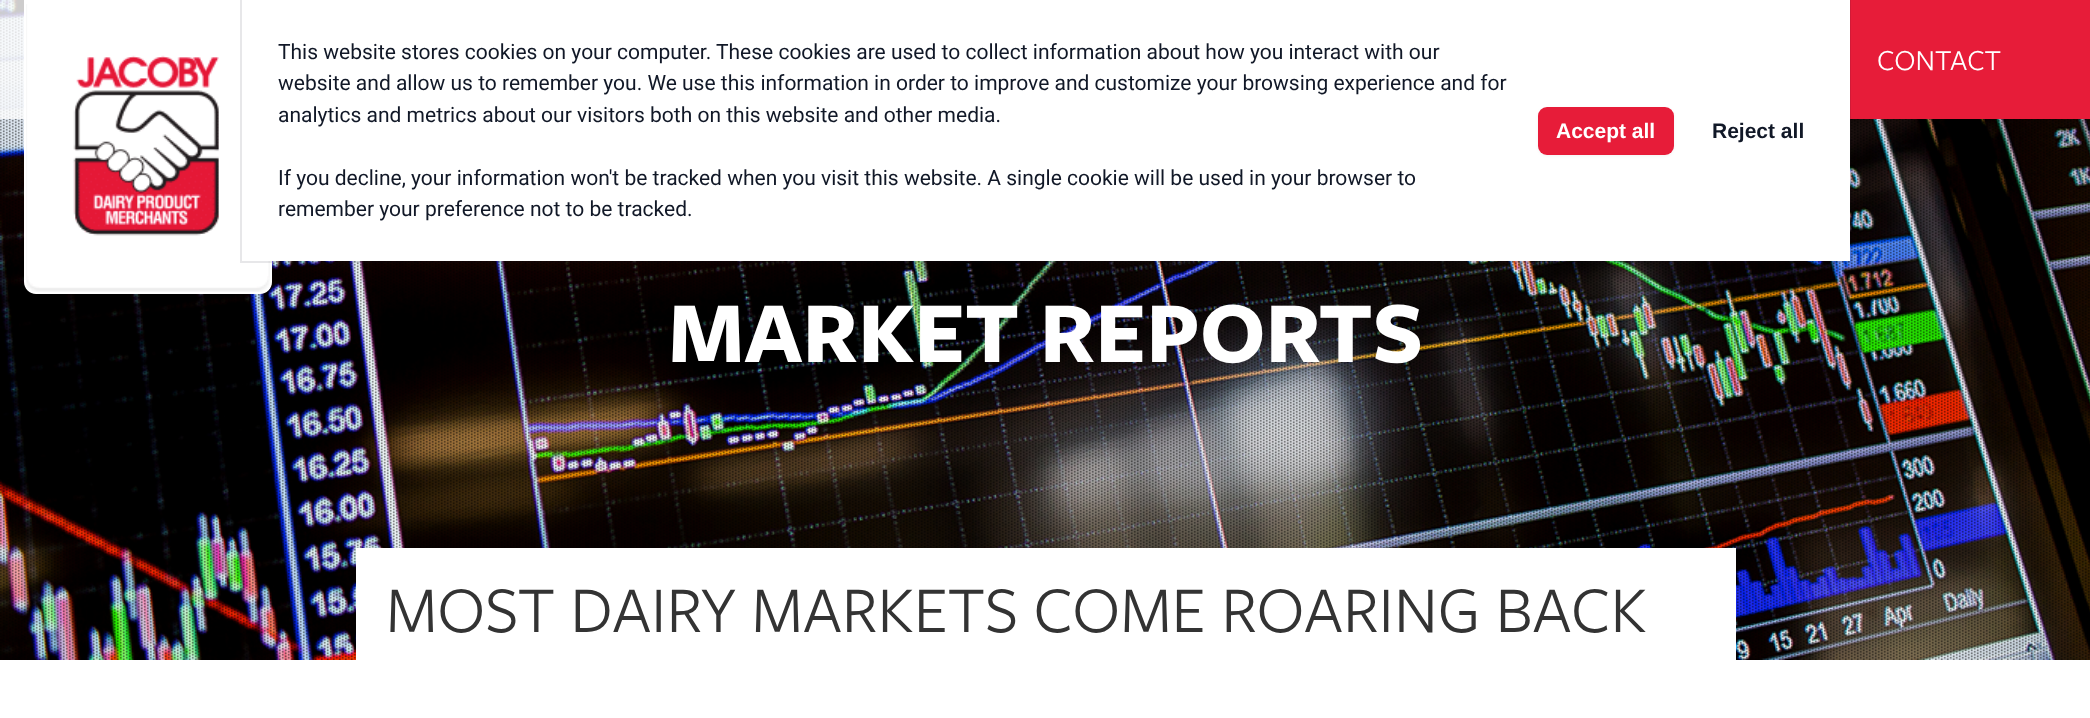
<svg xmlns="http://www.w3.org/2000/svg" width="2090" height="718">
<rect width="100%" height="100%" fill="#fff"/>
<image x="0" y="0" width="2090" height="660" href="media/2.png"/>
<image x="0" y="0" width="2090" height="660" href="media/3.png"/>
<path d="M24 0h248v282c0 6.5-5.5 12-12 12h-224c-6.5 0-12-5.5-12-12z" fill="#fff"/>
<image x="26" y="4" width="244" height="288" href="media/1.png"/>
<rect x="1850" width="240" height="119" fill="#e71c39"/>
<rect x="241" y="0" width="1609" height="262" fill="none" stroke="#1118271a" stroke-width="2"/>
<rect x="242" width="1608" height="261" fill="#fff"/>
<text x="278" y="59" style="font-family:Roboto;font-size:21px;fill:#111827">This website stores cookies on your computer. These cookies are used to collect information about how you interact with our</text>
<text x="278" y="90" style="font-family:Roboto;font-size:21px;fill:#111827">website and allow us to remember you. We use this information in order to improve and customize your browsing experience and for</text>
<text x="278" y="122" style="font-family:Roboto;font-size:21px;fill:#111827">analytics and metrics about our visitors both on this website and other media.</text>
<text x="278" y="185" style="font-family:Roboto;font-size:21px;fill:#111827">If you decline, your information won't be tracked when you visit this website. A single cookie will be used in your browser to</text>
<text x="278" y="216" style="font-family:Roboto;font-size:21px;fill:#111827">remember your preference not to be tracked.</text>
<rect x="1538" y="108" width="136" height="48" rx="9" fill="#0000000d" filter="blur(1.5px)"/>
<rect x="1538" y="107" width="136" height="48" rx="9" fill="#e71c39"/>
<text x="1556" y="138" style="font-family:Liberation Sans;font-size:21px;font-weight:bold;fill:#fff">Accept all</text>
<text x="1712" y="138" style="font-family:Liberation Sans;font-size:21px;font-weight:bold;fill:#111827">Reject all</text>
<rect width="24" height="119" fill="#ffffffcc"/>
<text x="1877" y="70" style="font-family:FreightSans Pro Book;font-size:30px;fill:#fff">CONTACT</text>
<text x="668" y="362" style="font-family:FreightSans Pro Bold;font-size:90px;font-weight:bold;fill:#fff">MARKET REPORTS</text>
<rect x="356" y="548" width="1380" height="112" fill="#fff"/>
<text x="386" y="632" style="font-family:FreightSans Pro Book;font-size:67.5px;fill:#333">MOST DAIRY MARKETS COME ROARING BACK</text>
</svg>
